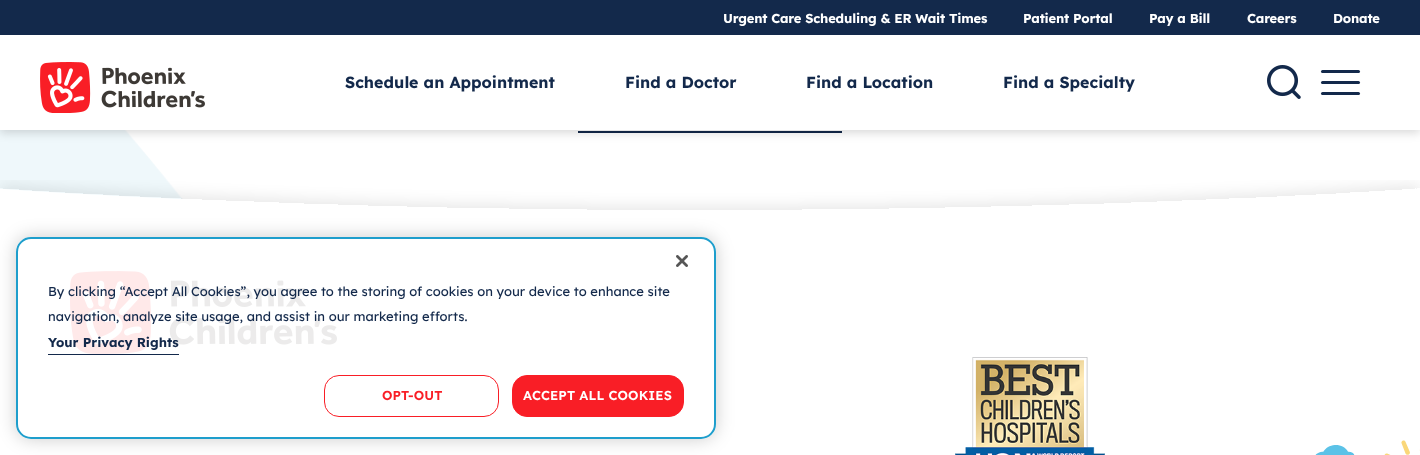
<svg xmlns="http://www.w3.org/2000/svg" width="1420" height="455">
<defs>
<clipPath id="clip1"><path d="M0 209h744v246h-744zm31 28h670c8.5 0 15 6.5 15 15v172c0 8.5-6.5 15-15 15h-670c-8.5 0-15-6.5-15-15v-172c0-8.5 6.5-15 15-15z" clip-rule="evenodd"/></clipPath>
</defs>
<rect width="100%" height="100%" fill="#fff"/>
<image x="0" y="130" width="183" height="70" href="media/3.png"/>
<rect x="578" y="131" width="264" height="2" fill="#13294b"/>
<rect y="3" width="1420" height="130" fill="#00000026" filter="blur(5px)"/>
<rect y="35" width="1420" height="95" fill="#fff"/>
<rect width="1420" height="35" fill="#13294b"/>
<text x="723" y="23" style="font-family:Lexend;font-size:13px;font-weight:bold;letter-spacing:-0.2px;fill:#fff">Urgent Care Scheduling &amp; ER Wait Times</text>
<text x="1023" y="23" style="font-family:Lexend;font-size:13px;font-weight:bold;letter-spacing:-0.2px;fill:#fff">Patient Portal</text>
<text x="1149" y="23" style="font-family:Lexend;font-size:13px;font-weight:bold;letter-spacing:-0.2px;fill:#fff">Pay a Bill</text>
<text x="1247" y="23" style="font-family:Lexend;font-size:13px;font-weight:bold;letter-spacing:-0.2px;fill:#fff">Careers</text>
<text x="1333" y="23" style="font-family:Lexend;font-size:13px;font-weight:bold;letter-spacing:-0.2px;fill:#fff">Donate</text>
<image x="40" y="62" width="165" height="51" href="media/1.png"/>
<text x="345" y="88" style="font-family:Lexend;font-size:16px;font-weight:bold;fill:#13294b">Schedule an Appointment</text>
<text x="625" y="88" style="font-family:Lexend;font-size:16px;font-weight:bold;fill:#13294b">Find a Doctor</text>
<text x="806" y="88" style="font-family:Lexend;font-size:16px;font-weight:bold;fill:#13294b">Find a Location</text>
<text x="1003" y="88" style="font-family:Lexend;font-size:16px;font-weight:bold;fill:#13294b">Find a Specialty</text>
<image x="1267" y="65" width="34" height="34" href="media/2.png"/>
<rect x="1321" y="70" width="39" height="3" rx="1.5" fill="#13294b"/>
<rect x="1321" y="81" width="39" height="3" rx="1.5" fill="#13294b"/>
<rect x="1321" y="92" width="39" height="3" rx="1.5" fill="#13294b"/>
<image x="0" y="180" width="1420" height="41" href="media/4.png"/>
<image x="70" y="271" width="267" height="83" href="media/5.png"/>
<image x="955" y="357" width="150" height="98" href="media/6.png"/>
<image x="1315" y="440" width="105" height="15" href="media/7.png"/>
<g clip-path="url(#clip1)">
<rect x="16" y="237" width="700" height="202" rx="15" fill="#00000033" filter="blur(9px)"/>
</g>
<rect x="17" y="238" width="698" height="200" rx="14" fill="#ffffffe6" stroke="#1e9ecc" stroke-width="2"/>
<image x="676" y="255" width="12" height="12" href="media/8.png"/>
<text x="48" y="296" style="font-family:Lexend;font-size:13px;fill:#13294b">By clicking “Accept All Cookies”, you agree to the storing of cookies on your device to enhance site</text>
<text x="48" y="321" style="font-family:Lexend;font-size:13px;fill:#13294b">navigation, analyze site usage, and assist in our marketing efforts.</text>
<text x="48" y="347" style="font-family:Lexend;font-size:13px;font-weight:bold;fill:#13294b">Your Privacy Rights</text>
<rect x="48" y="354" width="131" height="1" fill="#13294b"/>
<rect x="324.5" y="375.5" width="174" height="41" rx="14.5" fill="none" stroke="#f91e26"/>
<text x="382" y="400" style="font-family:Lexend;font-size:13px;font-weight:600;letter-spacing:0.1px;fill:#f91e26">OPT-OUT</text>
<rect x="512.5" y="375.5" width="171" height="41" rx="14.5" fill="#f91e26" stroke="#f91e26"/>
<text x="523" y="400" style="font-family:Lexend;font-size:13px;font-weight:600;letter-spacing:0.1px;fill:#fff">ACCEPT ALL COOKIES</text>
</svg>
